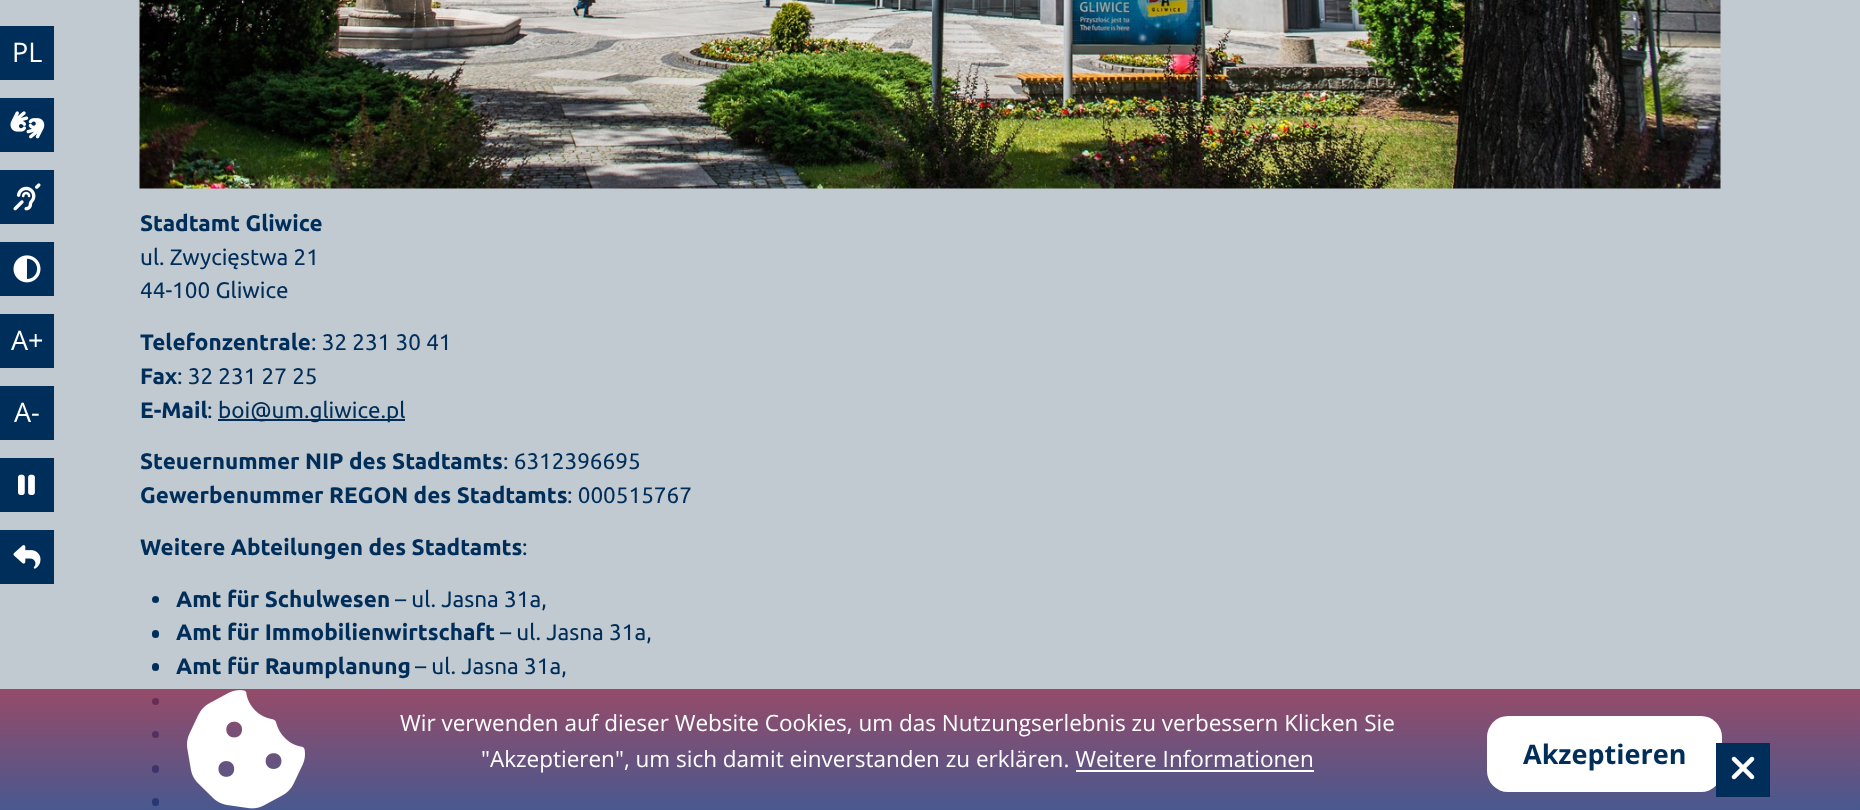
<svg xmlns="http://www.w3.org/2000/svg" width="1860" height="810">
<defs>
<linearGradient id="g1" gradientUnits="userSpaceOnUse" x1="930" y1="688" x2="930" y2="810"><stop offset="0" stop-color="#8c2b4e" stop-opacity="0.8"/><stop offset="1" stop-color="#2a3c7e" stop-opacity="0.8"/></linearGradient>
</defs>
<rect width="100%" height="100%" fill="#c2cad1"/>
<rect y="26" width="54" height="54" fill="#002e5a"/>
<text x="12" y="62" style="font-family:Open Sans;font-size:27px;fill:#fff">PL</text>
<rect y="98" width="54" height="54" fill="#002e5a"/>
<image x="10" y="111" width="35" height="28" href="media/1.png"/>
<rect y="170" width="54" height="54" fill="#002e5a"/>
<image x="13" y="183" width="28" height="28" href="media/2.png"/>
<rect y="242" width="54" height="54" fill="#002e5a"/>
<image x="13" y="255" width="28" height="28" href="media/3.png"/>
<rect y="314" width="54" height="54" fill="#002e5a"/>
<text x="11" y="350" style="font-family:Open Sans;font-size:27px;fill:#fff">A+</text>
<rect y="386" width="54" height="54" fill="#002e5a"/>
<text x="14" y="422" style="font-family:Open Sans;font-size:27px;fill:#fff">A-</text>
<rect y="458" width="54" height="54" fill="#002e5a"/>
<image x="18" y="474" width="17" height="21" href="media/4.png"/>
<rect y="530" width="54" height="54" fill="#002e5a"/>
<image x="13" y="545" width="28" height="24" href="media/5.png"/>
<image x="139" y="0" width="1582" height="189" href="media/6.png"/>
<text x="140" y="231" style="font-family:Ubuntu;font-size:22.5px;font-weight:bold;fill:#002e5a">Stadtamt Gliwice</text>
<text x="140" y="265" style="font-family:Ubuntu;font-size:22.5px;fill:#002e5a">ul. Zwycięstwa 21</text>
<text x="140" y="298" style="font-family:Ubuntu;font-size:22.5px;fill:#002e5a">44-100 Gliwice</text>
<text x="140" y="350" style="font-family:Ubuntu;font-size:22.5px;font-weight:bold;fill:#002e5a">Telefonzentrale</text>
<text x="311" y="350" style="font-family:Ubuntu;font-size:22.5px;fill:#002e5a">: 32 231 30 41</text>
<text x="140" y="384" style="font-family:Ubuntu;font-size:22.5px;font-weight:bold;fill:#002e5a">Fax</text>
<text x="177" y="384" style="font-family:Ubuntu;font-size:22.5px;fill:#002e5a">: 32 231 27 25</text>
<text x="140" y="418" style="font-family:Ubuntu;font-size:22.5px;font-weight:bold;fill:#002e5a">E-Mail</text>
<text x="207" y="418" style="font-family:Ubuntu;font-size:22.5px;fill:#002e5a">:</text>
<rect x="218" y="419" width="187" height="2" fill="#002e5a"/>
<text x="218" y="418" style="font-family:Ubuntu;font-size:22.5px;fill:#002e5a">boi@um.gliwice.pl</text>
<text x="140" y="469" style="font-family:Ubuntu;font-size:22.5px;font-weight:bold;fill:#002e5a">Steuernummer NIP des Stadtamts</text>
<text x="503" y="469" style="font-family:Ubuntu;font-size:22.5px;fill:#002e5a">: 6312396695</text>
<text x="140" y="503" style="font-family:Ubuntu;font-size:22.5px;font-weight:bold;fill:#002e5a">Gewerbenummer REGON des Stadtamts</text>
<text x="567" y="503" style="font-family:Ubuntu;font-size:22.5px;fill:#002e5a">: 000515767</text>
<text x="140" y="555" style="font-family:Ubuntu;font-size:22.5px;font-weight:bold;fill:#002e5a">Weitere Abteilungen des Stadtamts</text>
<text x="522" y="555" style="font-family:Ubuntu;font-size:22.5px;fill:#002e5a">:</text>
<circle cx="155.5" cy="599.5" r="3.5" fill="#002e5a"/>
<text x="176" y="607" style="font-family:Ubuntu;font-size:22.5px;font-weight:bold;fill:#002e5a">Amt für Schulwesen</text>
<text x="395" y="607" style="font-family:Ubuntu;font-size:22.5px;fill:#002e5a">– ul. Jasna 31a,</text>
<rect x="152" y="630" width="7" height="8" rx="3.5" fill="#002e5a"/>
<text x="176" y="640" style="font-family:Ubuntu;font-size:22.5px;font-weight:bold;fill:#002e5a">Amt für Immobilienwirtschaft</text>
<text x="500" y="640" style="font-family:Ubuntu;font-size:22.5px;fill:#002e5a">– ul. Jasna 31a,</text>
<rect x="152" y="663" width="7" height="8" rx="3.5" fill="#002e5a"/>
<text x="176" y="674" style="font-family:Ubuntu;font-size:22.5px;font-weight:bold;fill:#002e5a">Amt für Raumplanung</text>
<text x="415" y="674" style="font-family:Ubuntu;font-size:22.5px;fill:#002e5a">– ul. Jasna 31a,</text>
<circle cx="155.5" cy="701.5" r="3.5" fill="#002e5a"/>
<circle cx="155.5" cy="734.5" r="3.5" fill="#002e5a"/>
<rect x="152" y="765" width="7" height="8" rx="3.5" fill="#002e5a"/>
<rect x="152" y="798" width="7" height="8" rx="3.5" fill="#002e5a"/>
<rect y="689" width="1860" height="121" fill="url(#g1)"/>
<image x="187" y="690" width="118" height="119" href="media/7.png"/>
<text x="400" y="731" style="font-family:Open Sans;font-size:22.5px;fill:#fff">Wir verwenden auf dieser Website Cookies, um das Nutzungserlebnis zu verbessern Klicken Sie</text>
<text x="481" y="767" style="font-family:Open Sans;font-size:22.5px;fill:#fff">"Akzeptieren", um sich damit einverstanden zu erklären. Weitere Informationen</text>
<rect x="1076" y="770" width="238" height="2" fill="#fff"/>
<rect x="1487" y="716" width="235" height="76" rx="21" fill="#fff"/>
<text x="1523" y="764" style="font-family:Open Sans;font-size:27px;font-weight:bold;fill:#002e5a">Akzeptieren</text>
<rect x="1716" y="743" width="54" height="54" fill="#002e5a"/>
<image x="1731" y="756" width="24" height="24" href="media/8.png"/>
</svg>
